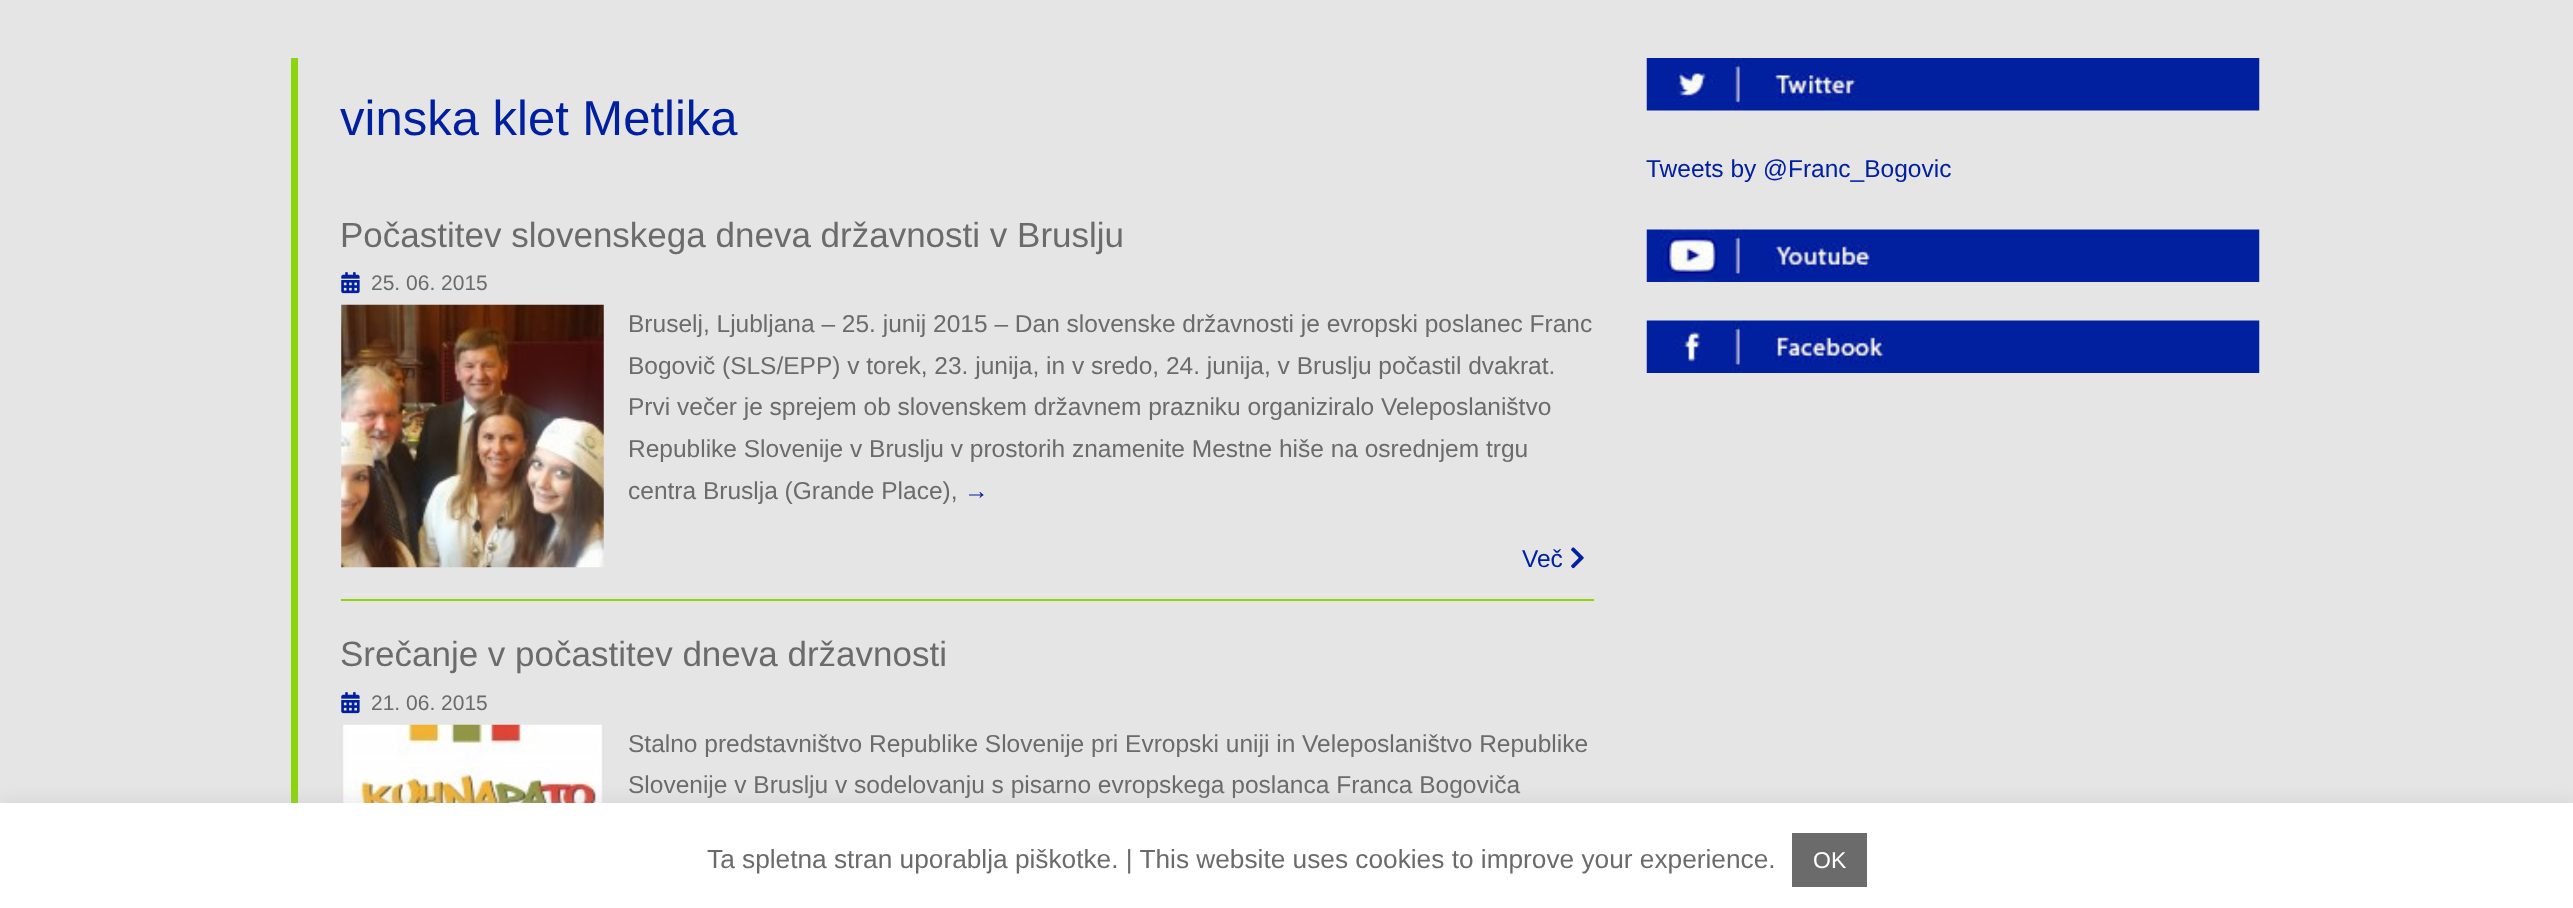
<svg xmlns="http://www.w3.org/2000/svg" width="2573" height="908">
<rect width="100%" height="100%" fill="#e5e5e5"/>
<rect x="291" y="58" width="7" height="745" fill="#8cd50c"/>
<text x="340" y="135" style="font-family:Liberation Sans;font-size:49px;fill:#00209f">vinska klet Metlika</text>
<rect x="341" y="599" width="1253" height="2" fill="#8cd50c"/>
<text x="340" y="247" style="font-family:Liberation Sans;font-size:35px;fill:#6b6b6b">Počastitev slovenskega dneva državnosti v Bruslju</text>
<image x="341" y="272" width="19" height="22" href="media/1.png"/>
<text x="371" y="290" style="font-family:Liberation Sans;font-size:21px;fill:#6b6b6b">25. 06. 2015</text>
<image x="341" y="304" width="263" height="264" href="media/2.png"/>
<text x="628" y="332" style="font-family:Liberation Sans;font-size:24.5px;fill:#6b6b6b">Bruselj, Ljubljana – 25. junij 2015 – Dan slovenske državnosti je evropski poslanec Franc</text>
<text x="628" y="374" style="font-family:Liberation Sans;font-size:24.5px;fill:#6b6b6b">Bogovič (SLS/EPP) v torek, 23. junija, in v sredo, 24. junija, v Bruslju počastil dvakrat.</text>
<text x="628" y="415" style="font-family:Liberation Sans;font-size:24.5px;fill:#6b6b6b">Prvi večer je sprejem ob slovenskem državnem prazniku organiziralo Veleposlaništvo</text>
<text x="628" y="457" style="font-family:Liberation Sans;font-size:24.5px;fill:#6b6b6b">Republike Slovenije v Bruslju v prostorih znamenite Mestne hiše na osrednjem trgu</text>
<text x="628" y="499" style="font-family:Liberation Sans;font-size:24.5px;fill:#6b6b6b">centra Bruslja (Grande Place),</text>
<text x="964" y="499" style="font-family:Liberation Sans;font-size:24.5px;fill:#00209f">→</text>
<text x="1522" y="567" style="font-family:Liberation Sans;font-size:24.5px;fill:#00209f">Več</text>
<image x="1571" y="547" width="13" height="22" href="media/3.png"/>
<rect x="341" y="593" width="1253" height="2" fill="#e8e8e8"/>
<text x="340" y="666" style="font-family:Liberation Sans;font-size:35px;fill:#6b6b6b">Srečanje v počastitev dneva državnosti</text>
<image x="341" y="692" width="19" height="22" href="media/1.png"/>
<text x="371" y="710" style="font-family:Liberation Sans;font-size:21px;fill:#6b6b6b">21. 06. 2015</text>
<image x="341" y="724" width="263" height="79" href="media/4.png"/>
<text x="628" y="752" style="font-family:Liberation Sans;font-size:24.5px;fill:#6b6b6b">Stalno predstavništvo Republike Slovenije pri Evropski uniji in Veleposlaništvo Republike</text>
<text x="628" y="793" style="font-family:Liberation Sans;font-size:24.5px;fill:#6b6b6b">Slovenije v Bruslju v sodelovanju s pisarno evropskega poslanca Franca Bogoviča</text>
<image x="1646" y="58" width="614" height="53" href="media/5.png"/>
<text x="1646" y="177" style="font-family:Liberation Sans;font-size:24.5px;fill:#00209f">Tweets by @Franc_Bogovic</text>
<image x="1646" y="229" width="614" height="53" href="media/6.png"/>
<image x="1646" y="320" width="614" height="53" href="media/7.png"/>
<rect y="802" width="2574" height="105" fill="#acabab4d" filter="blur(9px)"/>
<rect y="803" width="2573" height="105" fill="#fff"/>
<text x="707" y="868" style="font-family:Liberation Sans;font-size:26.25px;fill:#6b6b6b">Ta spletna stran uporablja piškotke. | This website uses cookies to improve your experience.</text>
<rect x="1792" y="833" width="75" height="54" fill="#6b6b6b"/>
<text x="1813" y="868" style="font-family:Liberation Sans;font-size:23px;fill:#fff">OK</text>
</svg>
